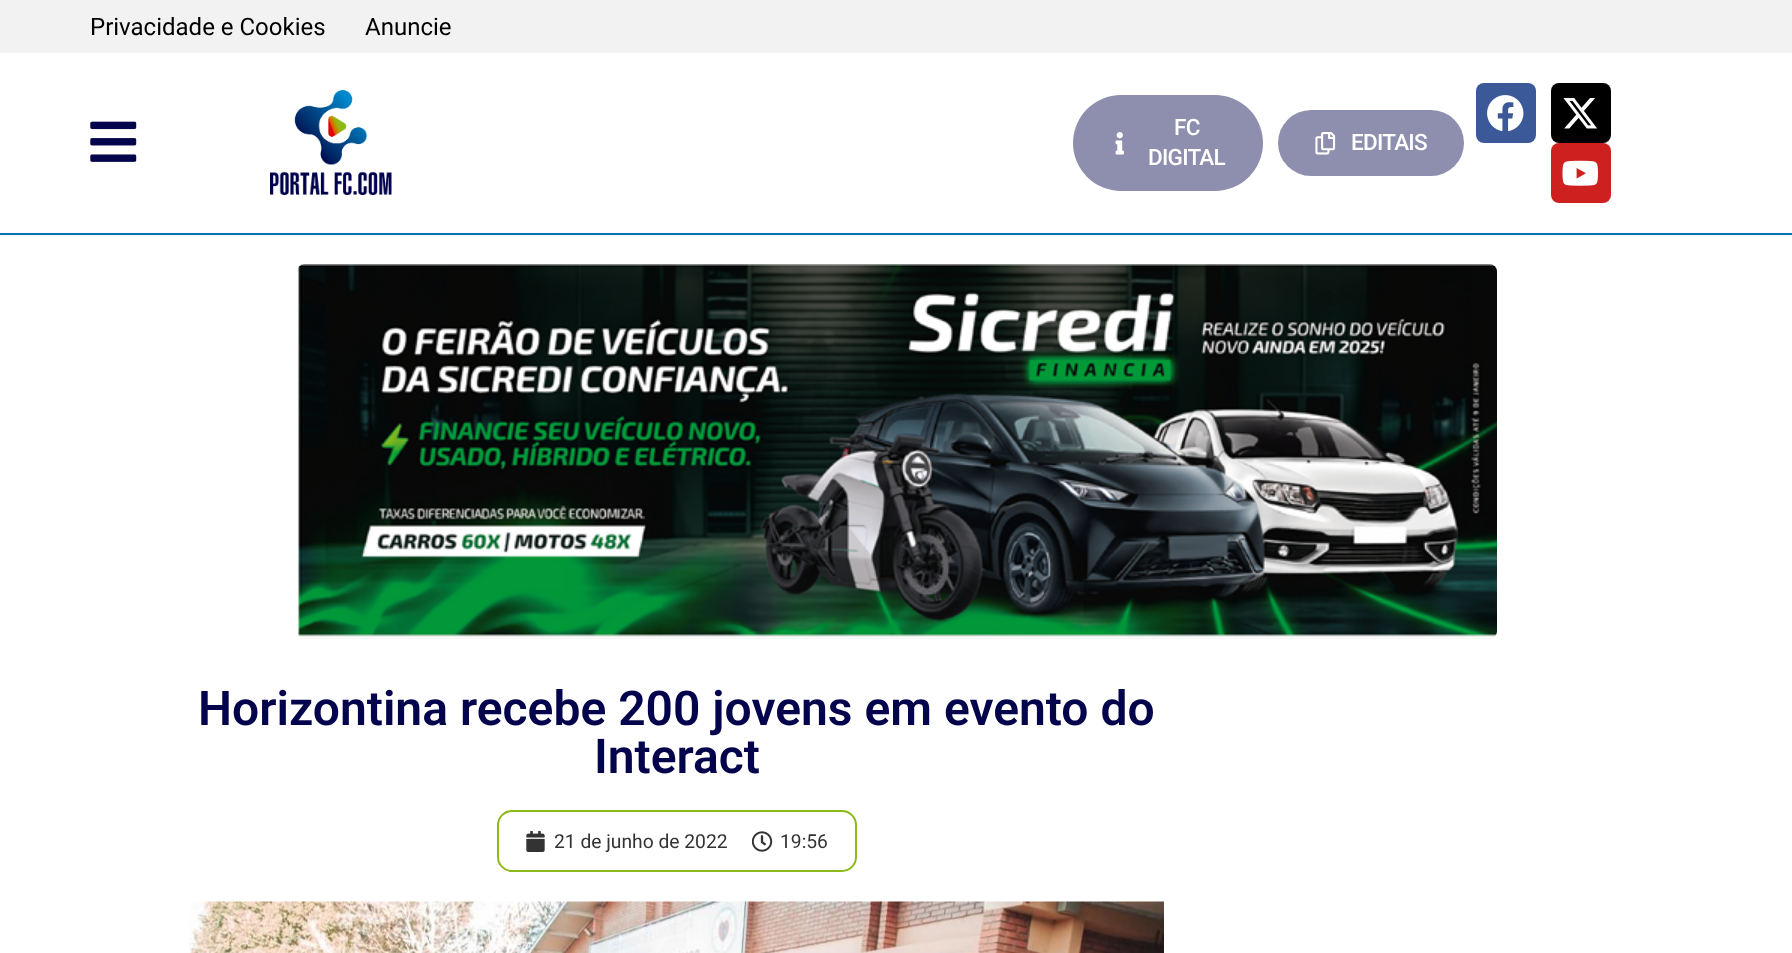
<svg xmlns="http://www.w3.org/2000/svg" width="1792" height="953">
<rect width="100%" height="100%" fill="#fff"/>
<rect width="1792" height="53" fill="#f2f2f2"/>
<text x="90" y="35" style="font-family:Roboto;font-size:24px;fill:#000">Privacidade e Cookies</text>
<text x="365" y="35" style="font-family:Roboto;font-size:24px;fill:#000">Anuncie</text>
<rect y="233" width="1792" height="2" fill="#0473b6"/>
<image x="90" y="121" width="47" height="41" href="media/1.png"/>
<image x="270" y="90" width="122" height="105" href="media/2.png"/>
<rect x="1073" y="95" width="190" height="96" rx="48" fill="#8e8eae"/>
<image x="1115" y="132" width="9" height="23" href="media/3.png"/>
<text x="1174" y="135" style="font-family:Roboto;font-size:22.5px;font-weight:500;letter-spacing:-0.75px;fill:#fff">FC</text>
<text x="1148" y="165" style="font-family:Roboto;font-size:22.5px;font-weight:500;letter-spacing:-0.75px;fill:#fff">DIGITAL</text>
<rect x="1278" y="110" width="186" height="66" rx="33" fill="#8e8eae"/>
<image x="1315" y="132" width="21" height="23" href="media/4.png"/>
<text x="1351" y="150" style="font-family:Roboto;font-size:22.5px;font-weight:500;letter-spacing:-0.75px;fill:#fff">EDITAIS</text>
<rect x="1476" y="83" width="60" height="60" rx="8" fill="#3b5998"/>
<image x="1487" y="95" width="37" height="37" href="media/5.png"/>
<rect x="1551" y="83" width="60" height="60" rx="8" fill="#000"/>
<image x="1563" y="98" width="34" height="31" href="media/6.png"/>
<rect x="1551" y="143" width="60" height="60" rx="8" fill="#cd201f"/>
<image x="1562" y="160" width="36" height="26" href="media/7.png"/>
<image x="297" y="264" width="1200" height="375" href="media/8.png"/>
<text x="198" y="725" style="font-family:Roboto;font-size:48px;font-weight:600;fill:#04044c">Horizontina recebe 200 jovens em evento do</text>
<text x="594" y="773" style="font-family:Roboto;font-size:48px;font-weight:600;fill:#04044c">Interact</text>
<rect x="498" y="811" width="358" height="60" rx="14" fill="none" stroke="#8bba19" stroke-width="2"/>
<image x="526" y="831" width="19" height="21" href="media/9.png"/>
<text x="554" y="848" style="font-family:Roboto;font-size:19.25px;fill:#333">21 de junho de 2022</text>
<image x="752" y="831" width="21" height="21" href="media/10.png"/>
<text x="780" y="848" style="font-family:Roboto;font-size:19.25px;fill:#333">19:56</text>
<image x="189" y="901" width="975" height="52" href="media/11.png"/>
</svg>
